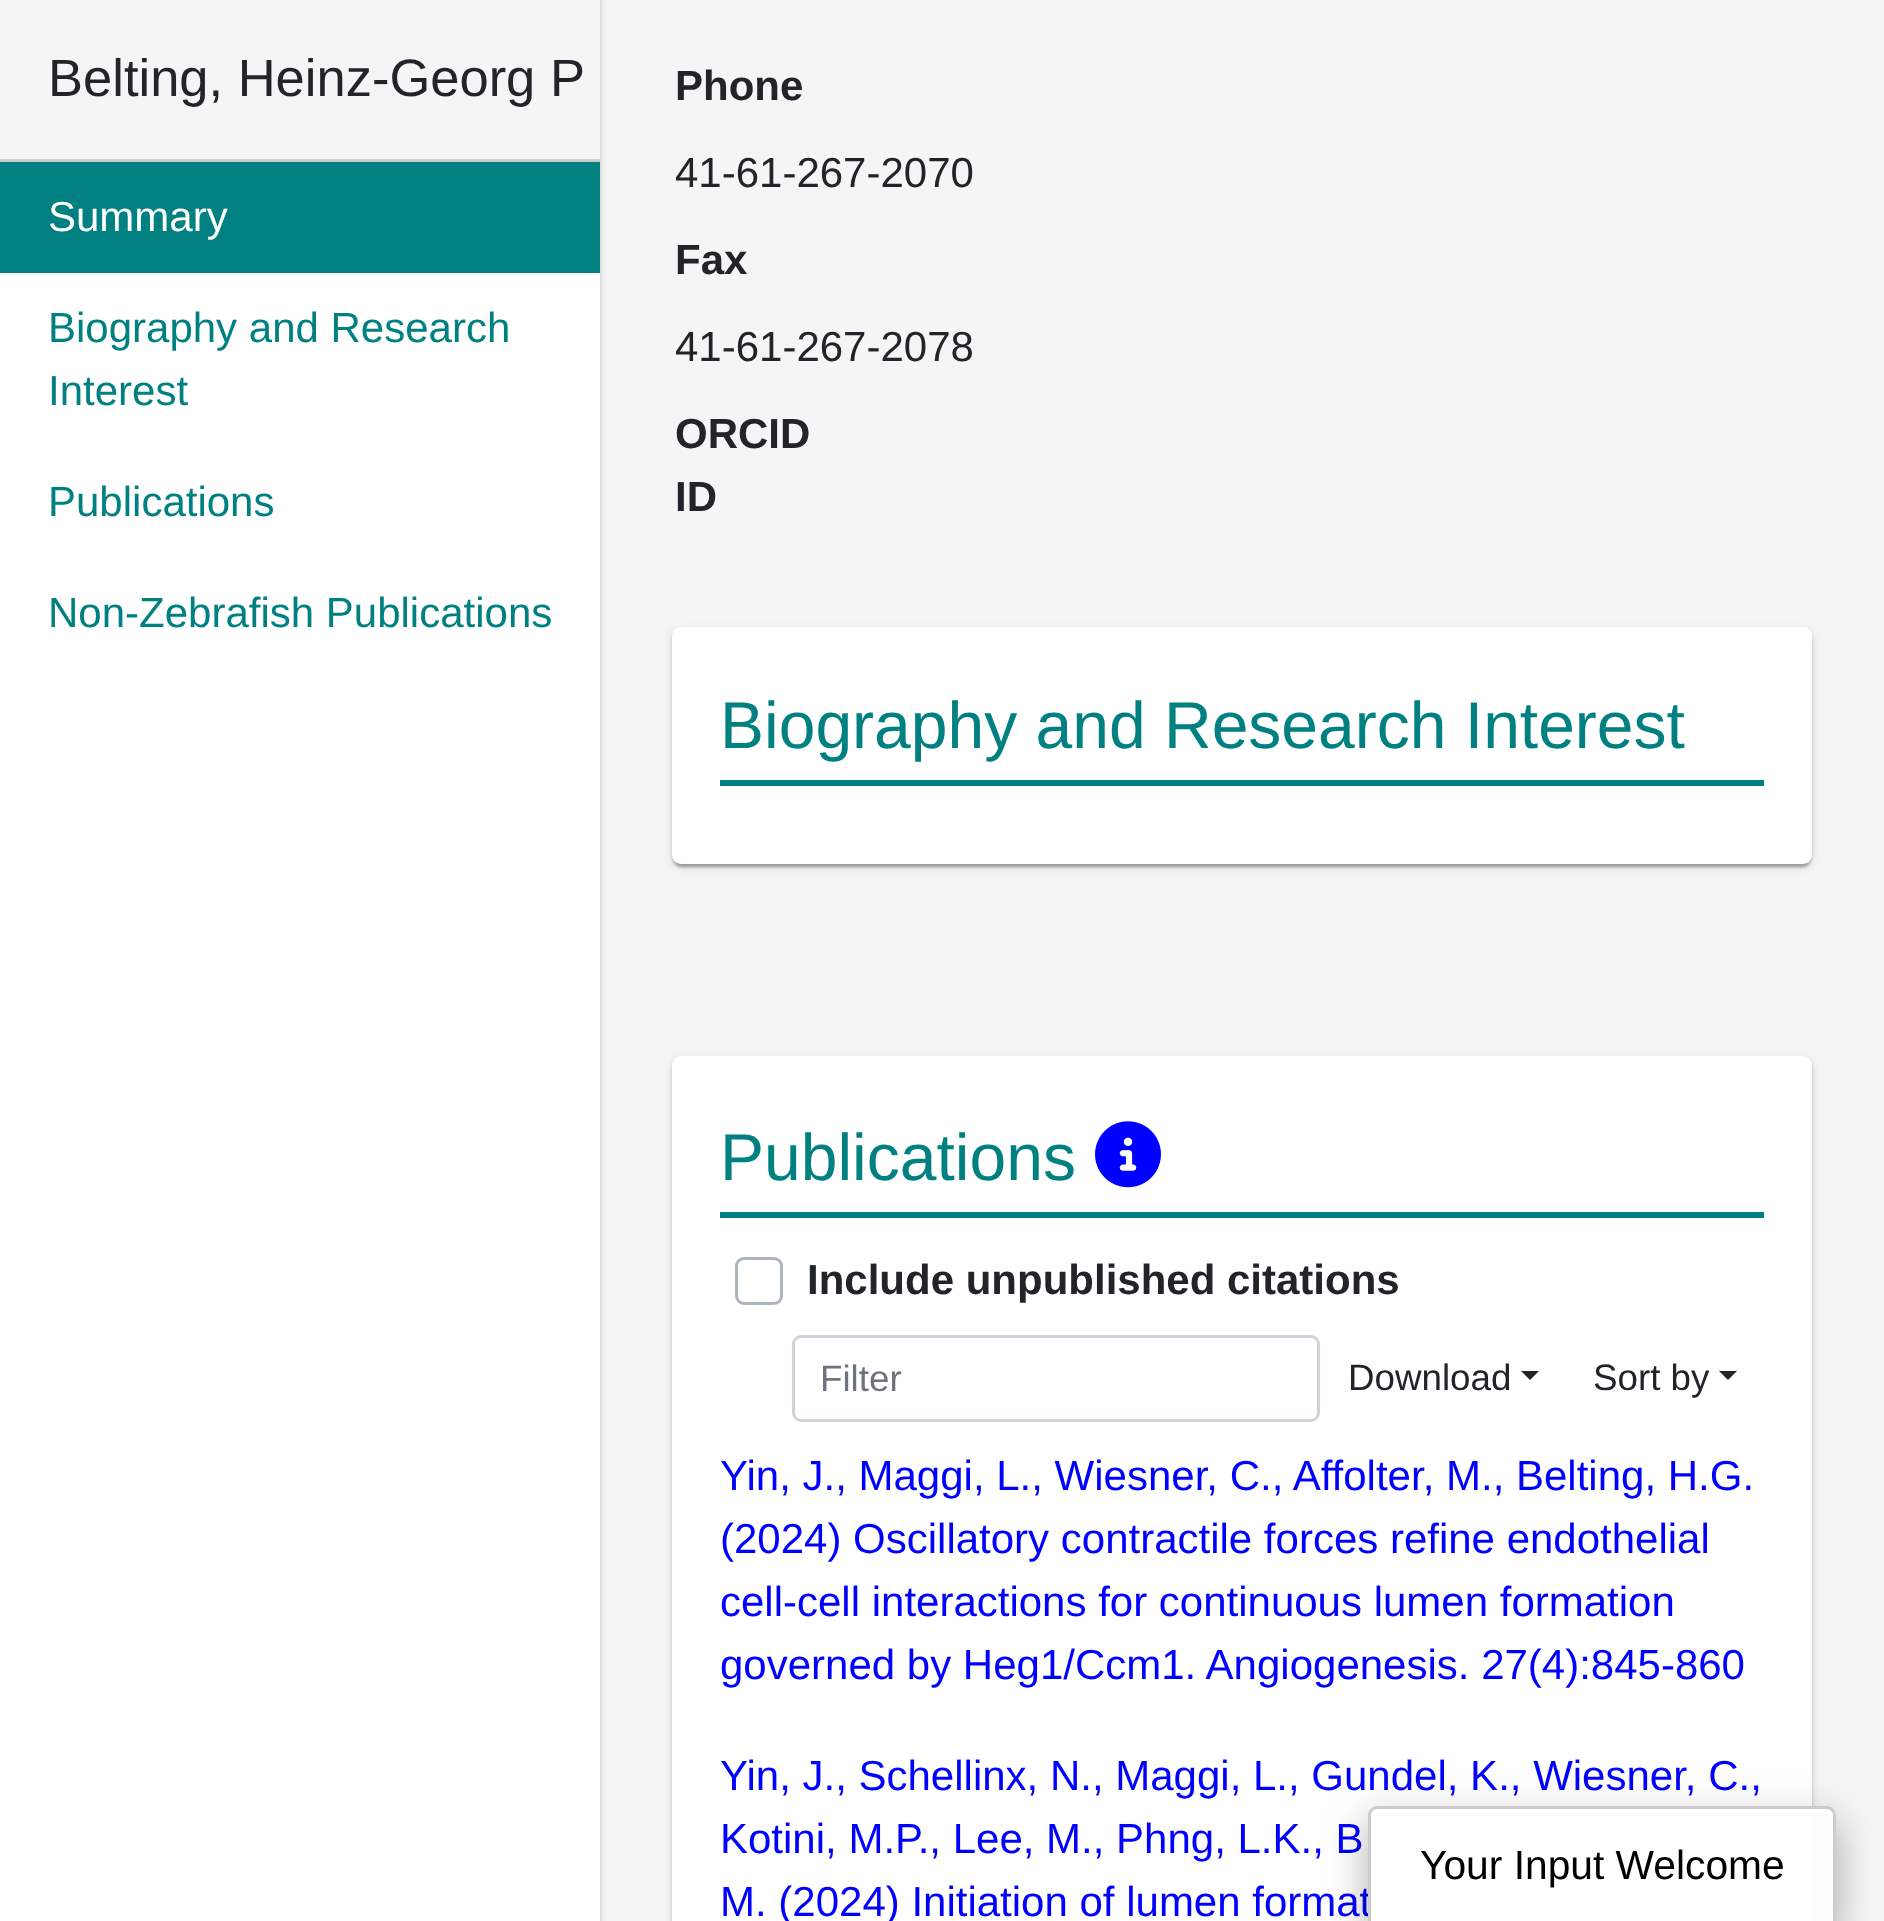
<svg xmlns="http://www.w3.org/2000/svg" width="1884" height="1921">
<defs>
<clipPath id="clip1"><path d="M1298 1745h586v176h-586zm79 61h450c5 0 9 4 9 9v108h-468v-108c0-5 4-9 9-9z" clip-rule="evenodd"/></clipPath>
<clipPath id="clip2"><path d="M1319 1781h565v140h-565zm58 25h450c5 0 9 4 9 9v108h-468v-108c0-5 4-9 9-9z" clip-rule="evenodd"/></clipPath>
</defs>
<rect width="100%" height="100%" fill="#f5f5f5"/>
<rect y="-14" width="600" height="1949" fill="#0000001f" filter="blur(4.5px)"/>
<rect y="-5" width="600" height="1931" fill="#00000024" filter="blur(1.5px)"/>
<rect y="273" width="600" height="1648" fill="#fff"/>
<rect width="600" height="159" fill="#f5f5f5"/>
<rect y="159" width="600" height="3" fill="#ccc"/>
<text x="48" y="96" style="font-family:Liberation Sans;font-size:52.5px;fill:#212529">Belting, Heinz-Georg P</text>
<rect y="162" width="600" height="111" fill="#008080"/>
<text x="48" y="231" style="font-family:Liberation Sans;font-size:42px;fill:#fff">Summary</text>
<text x="48" y="342" style="font-family:Liberation Sans;font-size:42px;fill:#008080">Biography and Research</text>
<text x="48" y="405" style="font-family:Liberation Sans;font-size:42px;fill:#008080">Interest</text>
<text x="48" y="516" style="font-family:Liberation Sans;font-size:42px;fill:#008080">Publications</text>
<text x="48" y="627" style="font-family:Liberation Sans;font-size:42px;fill:#008080">Non-Zebrafish Publications</text>
<text x="675" y="100" style="font-family:Liberation Sans;font-size:42px;font-weight:bold;fill:#212529">Phone</text>
<text x="675" y="187" style="font-family:Liberation Sans;font-size:42px;fill:#212529">41-61-267-2070</text>
<text x="675" y="274" style="font-family:Liberation Sans;font-size:42px;font-weight:bold;fill:#212529">Fax</text>
<text x="675" y="361" style="font-family:Liberation Sans;font-size:42px;fill:#212529">41-61-267-2078</text>
<text x="675" y="448" style="font-family:Liberation Sans;font-size:42px;font-weight:bold;fill:#212529">ORCID</text>
<text x="675" y="511" style="font-family:Liberation Sans;font-size:42px;font-weight:bold;fill:#212529">ID</text>
<rect x="672" y="630" width="1140" height="237" rx="9" fill="#0000001f" filter="blur(4.5px)"/>
<rect x="672" y="630" width="1140" height="237" rx="9" fill="#00000024" filter="blur(1.5px)"/>
<rect x="675" y="636" width="1134" height="231" rx="6" fill="#00000033" filter="blur(1.5px)"/>
<rect x="672" y="627" width="1140" height="237" rx="9" fill="#fff"/>
<rect x="720" y="780" width="1044" height="6" fill="#008080"/>
<text x="720" y="748" style="font-family:Liberation Sans;font-size:66px;fill:#008080">Biography and Research Interest</text>
<rect x="672" y="1059" width="1140" height="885" rx="9" fill="#0000001f" filter="blur(4.5px)"/>
<rect x="672" y="1059" width="1140" height="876" rx="9" fill="#00000024" filter="blur(1.5px)"/>
<rect x="672" y="1056" width="1140" height="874" rx="9" fill="#fff"/>
<rect x="720" y="1212" width="1044" height="6" fill="#008080"/>
<text x="720" y="1180" style="font-family:Liberation Sans;font-size:66px;fill:#008080">Publications</text>
<image x="1095" y="1121" width="66" height="67" href="media/1.png"/>
<rect x="736.5" y="1258.5" width="45" height="45" rx="7.5" fill="none" stroke="#adb5bd" stroke-width="3"/>
<text x="807" y="1294" style="font-family:Liberation Sans;font-size:42px;font-weight:bold;fill:#212529">Include unpublished citations</text>
<rect x="793.5" y="1336.5" width="525" height="84" rx="7.5" fill="none" stroke="#ced4da" stroke-width="3"/>
<text x="820" y="1391" style="font-family:Liberation Sans;font-size:36.75px;fill:#6c757d">Filter</text>
<text x="1348" y="1390" style="font-family:Liberation Sans;font-size:36.75px;fill:#212529">Download</text>
<path d="M1521 1371h18l-9 9z" fill="#212529"/>
<text x="1593" y="1390" style="font-family:Liberation Sans;font-size:36.75px;fill:#212529">Sort by</text>
<path d="M1719 1371h18l-9 9z" fill="#212529"/>
<text x="720" y="1490" style="font-family:Liberation Sans;font-size:42px;fill:#00f">Yin, J., Maggi, L., Wiesner, C., Affolter, M., Belting, H.G.</text>
<text x="720" y="1553" style="font-family:Liberation Sans;font-size:42px;fill:#00f">(2024) Oscillatory contractile forces refine endothelial</text>
<text x="720" y="1616" style="font-family:Liberation Sans;font-size:42px;fill:#00f">cell-cell interactions for continuous lumen formation</text>
<text x="720" y="1679" style="font-family:Liberation Sans;font-size:42px;fill:#00f">governed by Heg1/Ccm1. Angiogenesis. 27(4):845-860</text>
<text x="720" y="1790" style="font-family:Liberation Sans;font-size:42px;fill:#00f">Yin, J., Schellinx, N., Maggi, L., Gundel, K., Wiesner, C.,</text>
<text x="720" y="1853" style="font-family:Liberation Sans;font-size:42px;fill:#00f">Kotini, M.P., Lee, M., Phng, L.K., B</text>
<text x="720" y="1916" style="font-family:Liberation Sans;font-size:42px;fill:#00f">M. (2024) Initiation of lumen format</text>
<g clip-path="url(#clip1)">
<rect x="1362" y="1809" width="480" height="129" rx="15" fill="#0000001f" filter="blur(21px)"/>
</g>
<g clip-path="url(#clip2)">
<rect x="1365" y="1827" width="474" height="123" rx="12" fill="#00000024" filter="blur(15px)"/>
</g>
<path d="M1377 1806h450c5 0 9 4 9 9v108h-468v-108c0-5 4-9 9-9z" fill="#ffffffe6"/>
<path d="M1377 1806h450c5 0 9 4 9 9v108h-468v-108c0-5 4-9 9-9zm0 3h450c3 0 6 3 6 6v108h-462v-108c0-3 3-6 6-6z" fill="#ccc" fill-rule="evenodd"/>
<text x="1420" y="1879" style="font-family:Liberation Sans;font-size:40.75px;fill:#000">Your Input Welcome</text>
</svg>
